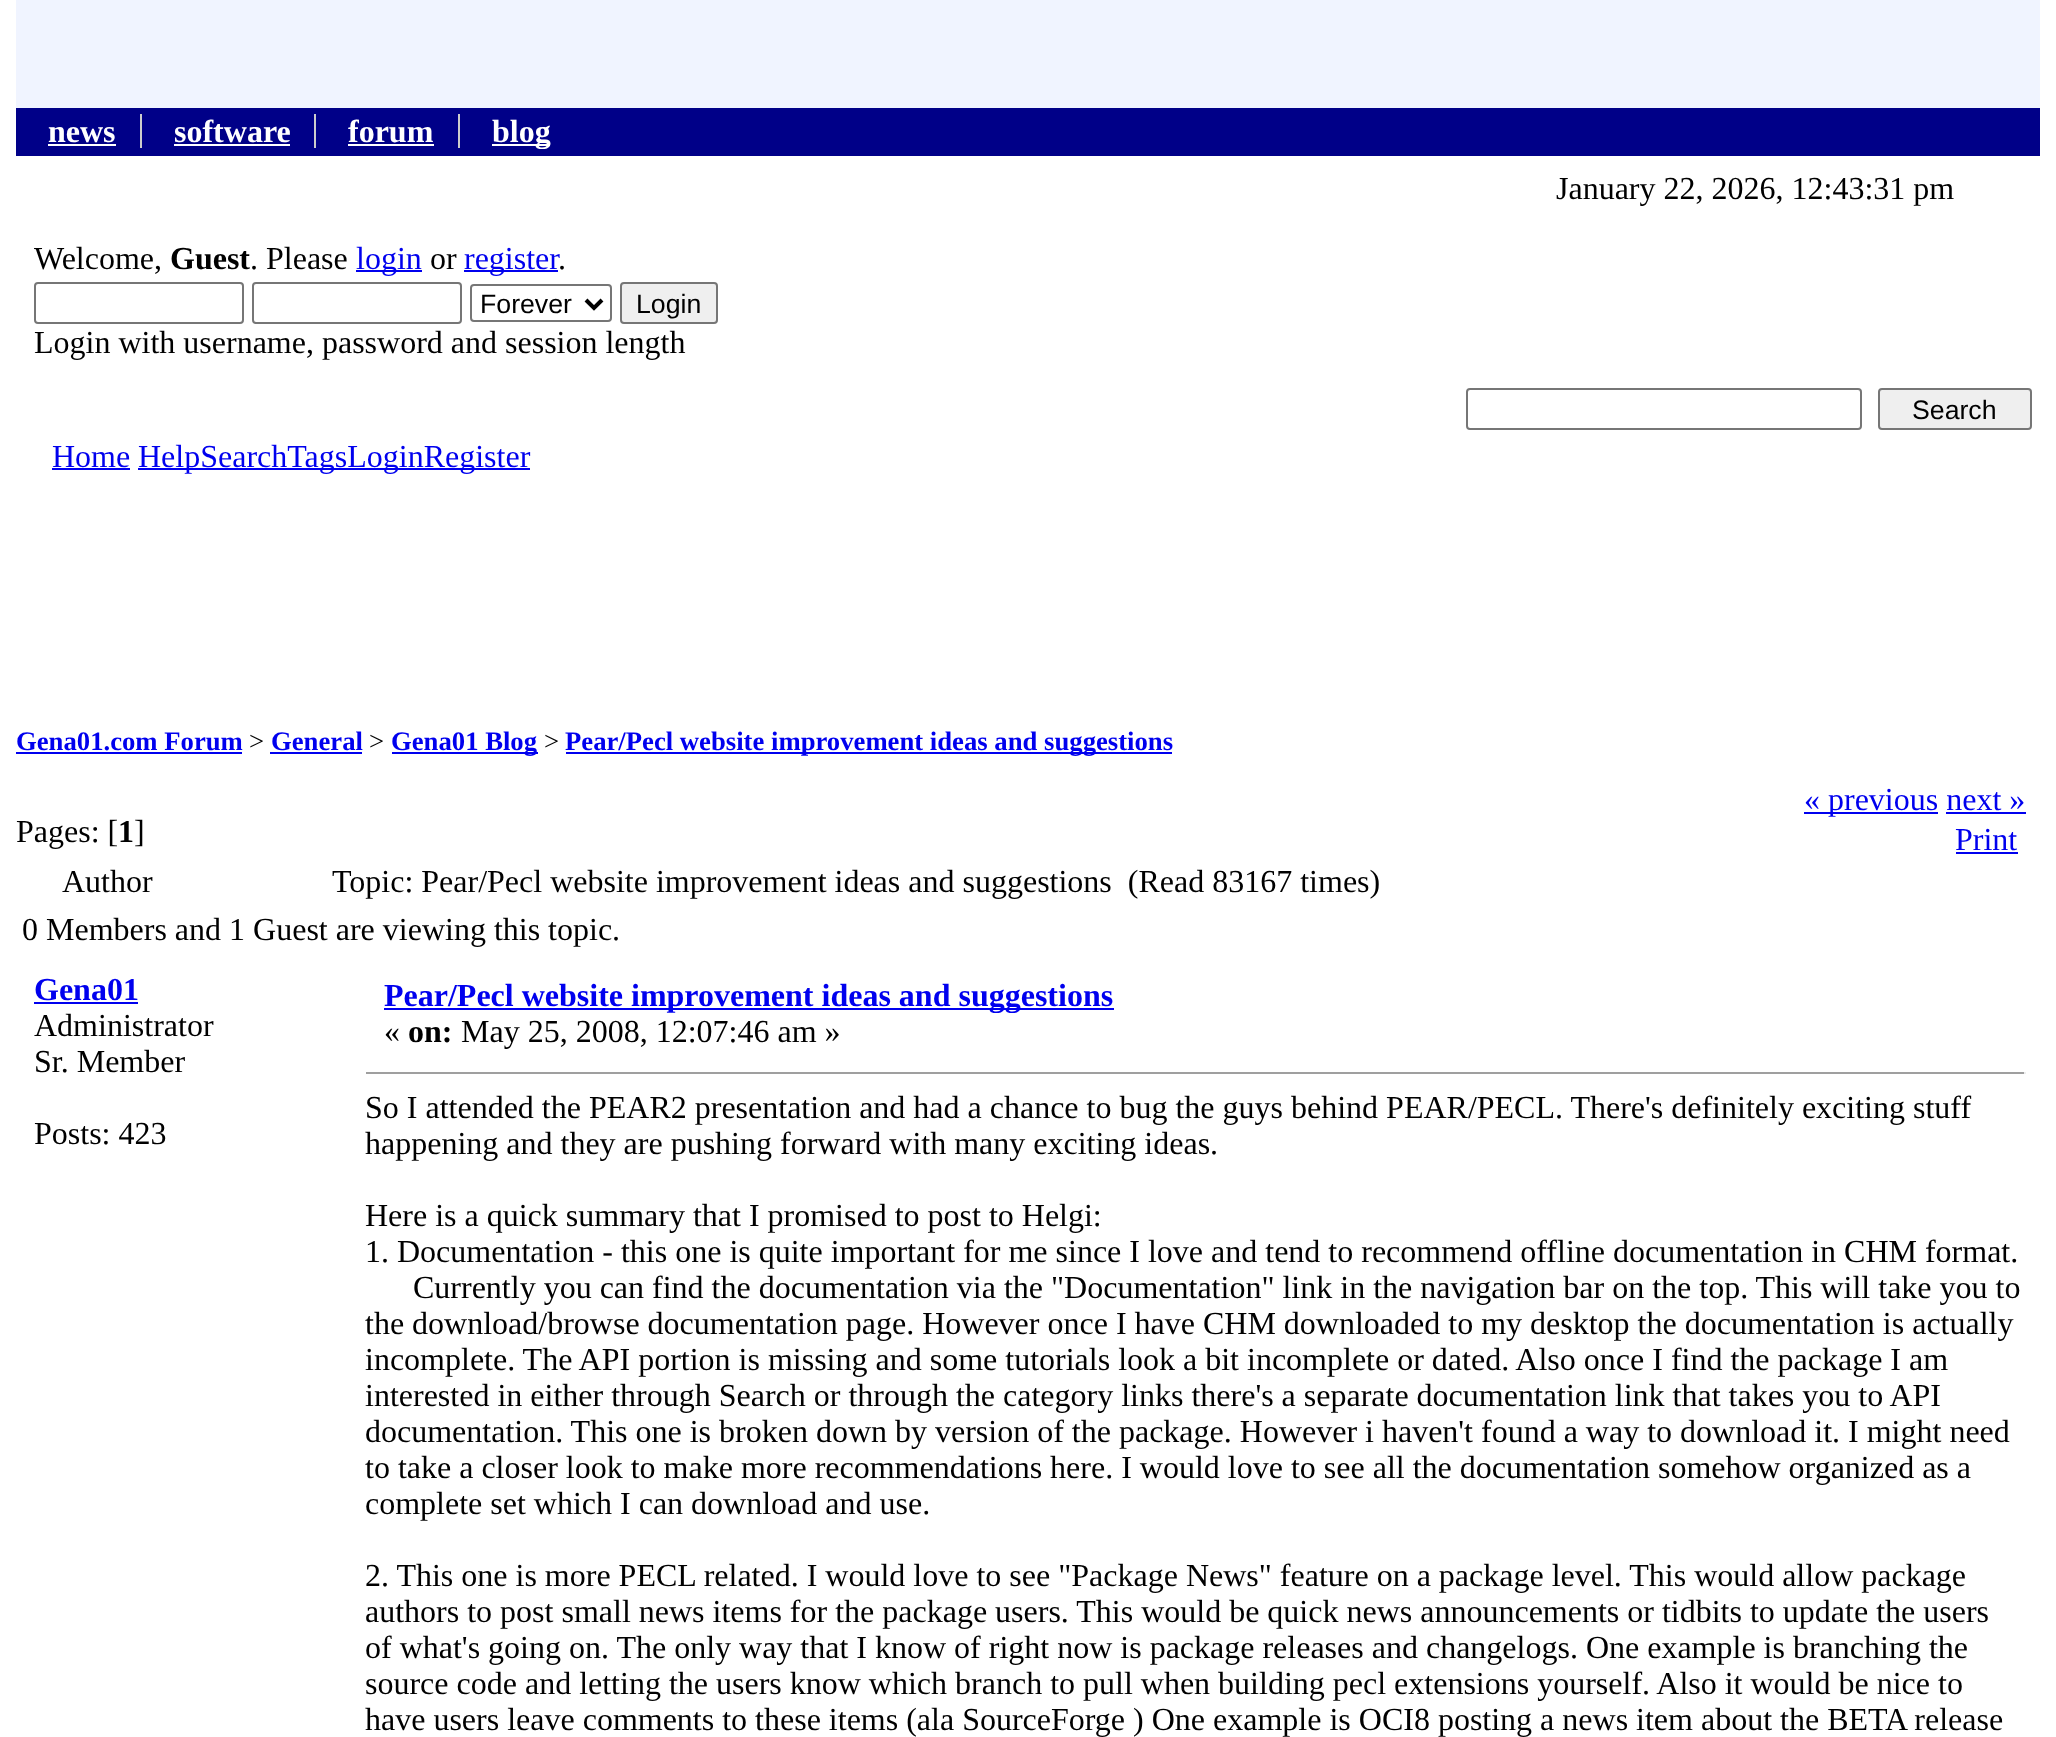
<svg xmlns="http://www.w3.org/2000/svg" width="2056" height="1737">
<rect width="100%" height="100%" fill="#fff"/>
<rect x="16" width="2024" height="108" fill="#f0f4ff"/>
<rect x="16" y="108" width="2024" height="48" fill="#008"/>
<text x="48" y="142" style="font-family:Liberation Serif;font-size:32px;font-weight:bold;fill:#fff">news</text>
<rect x="140" y="114" width="2" height="34" fill="#ccc"/>
<rect x="48" y="144" width="68" height="2" fill="#fff"/>
<text x="174" y="142" style="font-family:Liberation Serif;font-size:32px;font-weight:bold;fill:#fff">software</text>
<rect x="314" y="114" width="2" height="34" fill="#ccc"/>
<rect x="174" y="144" width="116" height="2" fill="#fff"/>
<text x="348" y="142" style="font-family:Liberation Serif;font-size:32px;font-weight:bold;fill:#fff">forum</text>
<rect x="458" y="114" width="2" height="34" fill="#ccc"/>
<rect x="348" y="144" width="86" height="2" fill="#fff"/>
<rect x="492" y="144" width="58" height="2" fill="#fff"/>
<text x="492" y="142" style="font-family:Liberation Serif;font-size:32px;font-weight:bold;fill:#fff">blog</text>
<text x="1556" y="199" style="font-family:Liberation Serif;font-size:32px;fill:#000">January 22, 2026, 12:43:31 pm</text>
<text x="34" y="269" style="font-family:Liberation Serif;font-size:32px;fill:#000">Welcome,</text>
<text x="170" y="269" style="font-family:Liberation Serif;font-size:32px;font-weight:bold;fill:#000">Guest</text>
<text x="250" y="269" style="font-family:Liberation Serif;font-size:32px;fill:#000">. Please</text>
<rect x="356" y="270" width="66" height="2" fill="#00e"/>
<text x="356" y="269" style="font-family:Liberation Serif;font-size:32px;fill:#00e">login</text>
<text x="430" y="269" style="font-family:Liberation Serif;font-size:32px;fill:#000">or</text>
<rect x="464" y="270" width="94" height="2" fill="#00e"/>
<text x="464" y="269" style="font-family:Liberation Serif;font-size:32px;fill:#00e">register</text>
<text x="558" y="269" style="font-family:Liberation Serif;font-size:32px;fill:#000">.</text>
<rect x="35" y="283" width="208" height="40" rx="3" fill="none" stroke="#767676" stroke-width="2"/>
<rect x="253" y="283" width="208" height="40" rx="3" fill="none" stroke="#767676" stroke-width="2"/>
<rect x="471" y="285" width="140" height="36" rx="3" fill="none" stroke="#767676" stroke-width="2"/>
<path d="M586 300l8 8l8-8" fill="none" stroke="#000" stroke-width="4"/>
<text x="480" y="313" style="font-family:Liberation Sans;font-size:26.7px;fill:#000">Forever</text>
<rect x="621" y="283" width="96" height="40" rx="3" fill="#efefef" stroke="#767676" stroke-width="2"/>
<text x="636" y="313" style="font-family:Liberation Sans;font-size:26.7px;fill:#000">Login</text>
<text x="34" y="353" style="font-family:Liberation Serif;font-size:32px;fill:#000">Login with username, password and session length</text>
<rect x="1467" y="389" width="394" height="40" rx="3" fill="none" stroke="#767676" stroke-width="2"/>
<rect x="1879" y="389" width="152" height="40" rx="3" fill="#efefef" stroke="#767676" stroke-width="2"/>
<text x="1912" y="419" style="font-family:Liberation Sans;font-size:26.7px;fill:#000">Search</text>
<text x="52" y="467" style="font-family:Liberation Serif;font-size:32px;fill:#00e">Home</text>
<rect x="52" y="468" width="78" height="2" fill="#00e"/>
<rect x="138" y="468" width="392" height="2" fill="#00e"/>
<text x="138" y="467" style="font-family:Liberation Serif;font-size:32px;fill:#00e">HelpSearchTagsLoginRegister</text>
<text x="16" y="750" style="font-family:Liberation Serif;font-size:26.7px;font-weight:bold;fill:#00e">Gena01.com Forum</text>
<rect x="16" y="752" width="226" height="2" fill="#00e"/>
<text x="249" y="750" style="font-family:Liberation Serif;font-size:26.7px;fill:#000">&gt;</text>
<text x="271" y="750" style="font-family:Liberation Serif;font-size:26.7px;font-weight:bold;fill:#00e">General</text>
<rect x="270" y="752" width="92" height="2" fill="#00e"/>
<text x="369" y="750" style="font-family:Liberation Serif;font-size:26.7px;fill:#000">&gt;</text>
<rect x="392" y="752" width="146" height="2" fill="#00e"/>
<text x="391" y="750" style="font-family:Liberation Serif;font-size:26.7px;font-weight:bold;fill:#00e">Gena01 Blog</text>
<text x="544" y="750" style="font-family:Liberation Serif;font-size:26.7px;fill:#000">&gt;</text>
<rect x="566" y="752" width="606" height="2" fill="#00e"/>
<text x="565" y="750" style="font-family:Liberation Serif;font-size:26.7px;font-weight:bold;fill:#00e">Pear/Pecl website improvement ideas and suggestions</text>
<text x="16" y="842" style="font-family:Liberation Serif;font-size:32px;fill:#000">Pages: [</text>
<text x="118" y="842" style="font-family:Liberation Serif;font-size:32px;font-weight:bold;fill:#000">1</text>
<text x="134" y="842" style="font-family:Liberation Serif;font-size:32px;fill:#000">]</text>
<rect x="1804" y="812" width="134" height="2" fill="#00e"/>
<text x="1804" y="810" style="font-family:Liberation Serif;font-size:32px;fill:#00e">« previous next »</text>
<rect x="1946" y="812" width="80" height="2" fill="#00e"/>
<text x="1955" y="850" style="font-family:Liberation Serif;font-size:32px;fill:#00e">Print</text>
<rect x="1956" y="852" width="62" height="2" fill="#00e"/>
<text x="62" y="892" style="font-family:Liberation Serif;font-size:32px;fill:#000">Author</text>
<text x="332" y="892" style="font-family:Liberation Serif;font-size:32px;fill:#000" xml:space="preserve">Topic: Pear/Pecl website improvement ideas and suggestions  (Read 83167 times)</text>
<text x="22" y="940" style="font-family:Liberation Serif;font-size:32px;fill:#000">0 Members and 1 Guest are viewing this topic.</text>
<text x="34" y="1000" style="font-family:Liberation Serif;font-size:32px;font-weight:bold;fill:#00e">Gena01</text>
<rect x="34" y="1002" width="104" height="2" fill="#00e"/>
<text x="34" y="1036" style="font-family:Liberation Serif;font-size:32px;fill:#000">Administrator</text>
<text x="34" y="1072" style="font-family:Liberation Serif;font-size:32px;fill:#000">Sr. Member</text>
<text x="34" y="1144" style="font-family:Liberation Serif;font-size:32px;fill:#000">Posts: 423</text>
<rect x="384" y="1008" width="730" height="2" fill="#00e"/>
<text x="384" y="1006" style="font-family:Liberation Serif;font-size:32px;font-weight:bold;fill:#00e">Pear/Pecl website improvement ideas and suggestions</text>
<text x="384" y="1042" style="font-family:Liberation Serif;font-size:32px;fill:#000">«</text>
<text x="408" y="1042" style="font-family:Liberation Serif;font-size:32px;font-weight:bold;fill:#000">on:</text>
<text x="461" y="1042" style="font-family:Liberation Serif;font-size:32px;fill:#000">May 25, 2008, 12:07:46 am »</text>
<rect x="366" y="1072" width="1660" height="2" fill="#9f9f9f"/>
<rect x="2024" y="1072" width="2" height="2" fill="#eee"/>
<text x="365" y="1118" style="font-family:Liberation Serif;font-size:32px;fill:#000">So I attended the PEAR2 presentation and had a chance to bug the guys behind PEAR/PECL. There's definitely exciting stuff</text>
<text x="365" y="1154" style="font-family:Liberation Serif;font-size:32px;fill:#000">happening and they are pushing forward with many exciting ideas.</text>
<text x="365" y="1226" style="font-family:Liberation Serif;font-size:32px;fill:#000">Here is a quick summary that I promised to post to Helgi:</text>
<text x="365" y="1262" style="font-family:Liberation Serif;font-size:32px;fill:#000">1. Documentation - this one is quite important for me since I love and tend to recommend offline documentation in CHM format.</text>
<text x="413" y="1298" style="font-family:Liberation Serif;font-size:32px;fill:#000">Currently you can find the documentation via the "Documentation" link in the navigation bar on the top. This will take you to</text>
<text x="365" y="1334" style="font-family:Liberation Serif;font-size:32px;fill:#000">the download/browse documentation page. However once I have CHM downloaded to my desktop the documentation is actually</text>
<text x="365" y="1370" style="font-family:Liberation Serif;font-size:32px;fill:#000">incomplete. The API portion is missing and some tutorials look a bit incomplete or dated. Also once I find the package I am</text>
<text x="365" y="1406" style="font-family:Liberation Serif;font-size:32px;fill:#000">interested in either through Search or through the category links there's a separate documentation link that takes you to API</text>
<text x="365" y="1442" style="font-family:Liberation Serif;font-size:32px;fill:#000">documentation. This one is broken down by version of the package. However i haven't found a way to download it. I might need</text>
<text x="365" y="1478" style="font-family:Liberation Serif;font-size:32px;fill:#000">to take a closer look to make more recommendations here. I would love to see all the documentation somehow organized as a</text>
<text x="365" y="1514" style="font-family:Liberation Serif;font-size:32px;fill:#000">complete set which I can download and use.</text>
<text x="365" y="1586" style="font-family:Liberation Serif;font-size:32px;fill:#000">2. This one is more PECL related. I would love to see "Package News" feature on a package level. This would allow package</text>
<text x="365" y="1622" style="font-family:Liberation Serif;font-size:32px;fill:#000">authors to post small news items for the package users. This would be quick news announcements or tidbits to update the users</text>
<text x="365" y="1658" style="font-family:Liberation Serif;font-size:32px;fill:#000">of what's going on. The only way that I know of right now is package releases and changelogs. One example is branching the</text>
<text x="365" y="1694" style="font-family:Liberation Serif;font-size:32px;fill:#000">source code and letting the users know which branch to pull when building pecl extensions yourself. Also it would be nice to</text>
<text x="365" y="1730" style="font-family:Liberation Serif;font-size:32px;fill:#000">have users leave comments to these items (ala SourceForge ) One example is OCI8 posting a news item about the BETA release</text>
</svg>
